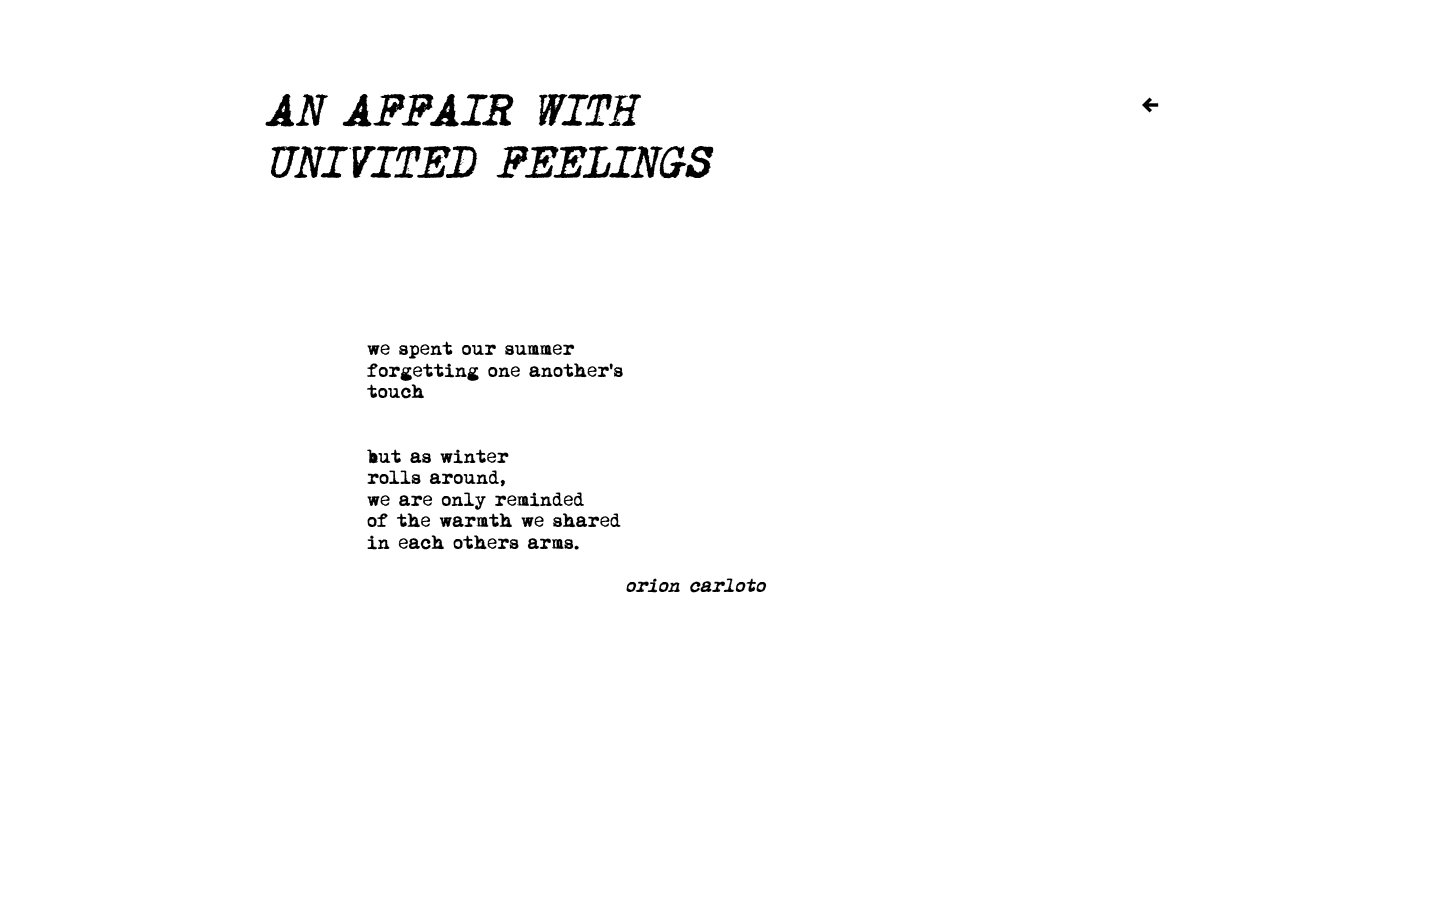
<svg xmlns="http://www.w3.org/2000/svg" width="1448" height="897">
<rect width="100%" height="100%" fill="#fff"/>
<text x="264" y="126" style="font-family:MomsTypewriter;font-size:40px;font-style:italic;fill:#000">AN AFFAIR WITH</text>
<text x="264" y="178" style="font-family:MomsTypewriter;font-size:40px;font-style:italic;fill:#000">UNIVITED FEELINGS</text>
<image x="1142" y="97" width="17" height="16" href="media/1.png"/>
<text x="367" y="355" style="font-family:MomsTypewriter;font-size:17px;fill:#000">we spent our summer</text>
<text x="367" y="377" style="font-family:MomsTypewriter;font-size:17px;fill:#000">forgetting one another's</text>
<text x="367" y="398" style="font-family:MomsTypewriter;font-size:17px;fill:#000">touch</text>
<text x="367" y="463" style="font-family:MomsTypewriter;font-size:17px;fill:#000">but as winter</text>
<text x="367" y="484" style="font-family:MomsTypewriter;font-size:17px;fill:#000">rolls around,</text>
<text x="367" y="506" style="font-family:MomsTypewriter;font-size:17px;fill:#000">we are only reminded</text>
<text x="367" y="527" style="font-family:MomsTypewriter;font-size:17px;fill:#000">of the warmth we shared</text>
<text x="367" y="549" style="font-family:MomsTypewriter;font-size:17px;fill:#000">in each others arms.</text>
<text x="625" y="592" style="font-family:MomsTypewriter;font-size:17px;font-style:italic;fill:#000">orion carloto</text>
</svg>
